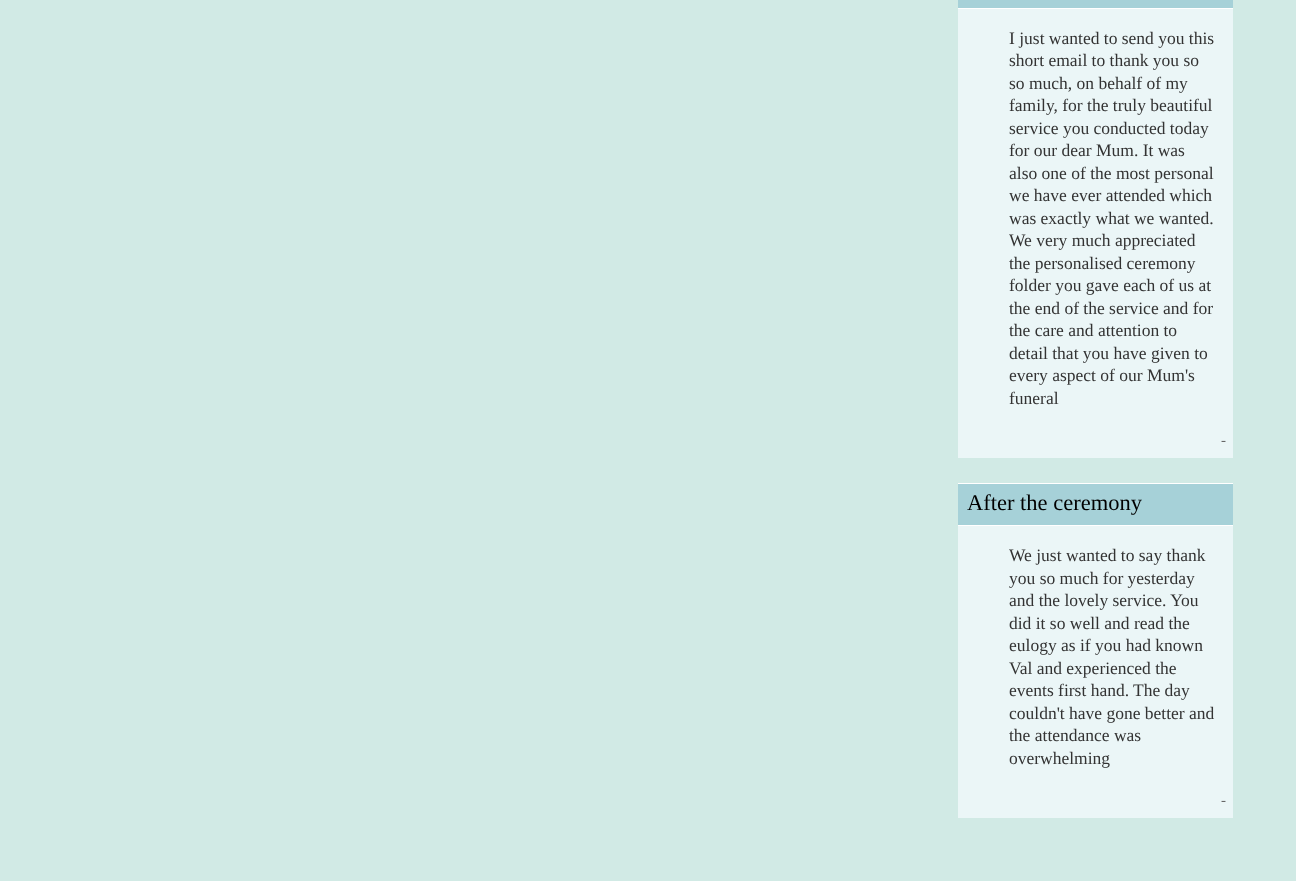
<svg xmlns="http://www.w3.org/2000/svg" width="1296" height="881">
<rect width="100%" height="100%" fill="#d1eae5"/>
<rect x="958" y="9" width="275" height="449" fill="#ebf6f7"/>
<rect x="958" width="275" height="8" fill="#a6d1d8"/>
<rect x="958" y="8" width="275" height="1" fill="#fff"/>
<text x="1009" y="44" style="font-family:Liberation Serif;font-size:17.5px;fill:#333">I just wanted to send you this</text>
<text x="1009" y="66" style="font-family:Liberation Serif;font-size:17.5px;fill:#333">short email to thank you so</text>
<text x="1009" y="89" style="font-family:Liberation Serif;font-size:17.5px;fill:#333">so much, on behalf of my</text>
<text x="1009" y="111" style="font-family:Liberation Serif;font-size:17.5px;fill:#333">family, for the truly beautiful</text>
<text x="1009" y="134" style="font-family:Liberation Serif;font-size:17.5px;fill:#333">service you conducted today</text>
<text x="1009" y="156" style="font-family:Liberation Serif;font-size:17.5px;fill:#333">for our dear Mum. It was</text>
<text x="1009" y="179" style="font-family:Liberation Serif;font-size:17.5px;fill:#333">also one of the most personal</text>
<text x="1009" y="201" style="font-family:Liberation Serif;font-size:17.5px;fill:#333">we have ever attended which</text>
<text x="1009" y="224" style="font-family:Liberation Serif;font-size:17.5px;fill:#333">was exactly what we wanted.</text>
<text x="1009" y="246" style="font-family:Liberation Serif;font-size:17.5px;fill:#333">We very much appreciated</text>
<text x="1009" y="269" style="font-family:Liberation Serif;font-size:17.5px;fill:#333">the personalised ceremony</text>
<text x="1009" y="291" style="font-family:Liberation Serif;font-size:17.5px;fill:#333">folder you gave each of us at</text>
<text x="1009" y="314" style="font-family:Liberation Serif;font-size:17.5px;fill:#333">the end of the service and for</text>
<text x="1009" y="336" style="font-family:Liberation Serif;font-size:17.5px;fill:#333">the care and attention to</text>
<text x="1009" y="359" style="font-family:Liberation Serif;font-size:17.5px;fill:#333">detail that you have given to</text>
<text x="1009" y="381" style="font-family:Liberation Serif;font-size:17.5px;fill:#333">every aspect of our Mum's</text>
<text x="1009" y="404" style="font-family:Liberation Serif;font-size:17.5px;fill:#333">funeral</text>
<text x="1221" y="445" style="font-family:Liberation Serif;font-size:15px;font-style:italic;fill:#666">-</text>
<rect x="958" y="526" width="275" height="292" fill="#ebf6f7"/>
<rect x="958" y="484" width="275" height="41" fill="#a6d1d8"/>
<rect x="958" y="483" width="275" height="1" fill="#fff"/>
<rect x="958" y="525" width="275" height="1" fill="#fff"/>
<text x="967" y="510" style="font-family:Liberation Serif;font-size:22.5px;fill:#000">After the ceremony</text>
<text x="1009" y="561" style="font-family:Liberation Serif;font-size:17.5px;fill:#333">We just wanted to say thank</text>
<text x="1009" y="584" style="font-family:Liberation Serif;font-size:17.5px;fill:#333">you so much for yesterday</text>
<text x="1009" y="606" style="font-family:Liberation Serif;font-size:17.5px;fill:#333">and the lovely service. You</text>
<text x="1009" y="629" style="font-family:Liberation Serif;font-size:17.5px;fill:#333">did it so well and read the</text>
<text x="1009" y="651" style="font-family:Liberation Serif;font-size:17.5px;fill:#333">eulogy as if you had known</text>
<text x="1009" y="674" style="font-family:Liberation Serif;font-size:17.5px;fill:#333">Val and experienced the</text>
<text x="1009" y="696" style="font-family:Liberation Serif;font-size:17.5px;fill:#333">events first hand.</text>
<text x="1133" y="696" style="font-family:Liberation Serif;font-size:17.5px;fill:#333">The day</text>
<text x="1009" y="719" style="font-family:Liberation Serif;font-size:17.5px;fill:#333">couldn't have gone better and</text>
<text x="1009" y="741" style="font-family:Liberation Serif;font-size:17.5px;fill:#333">the attendance was</text>
<text x="1009" y="764" style="font-family:Liberation Serif;font-size:17.5px;fill:#333">overwhelming</text>
<text x="1221" y="805" style="font-family:Liberation Serif;font-size:15px;font-style:italic;fill:#666">-</text>
</svg>
